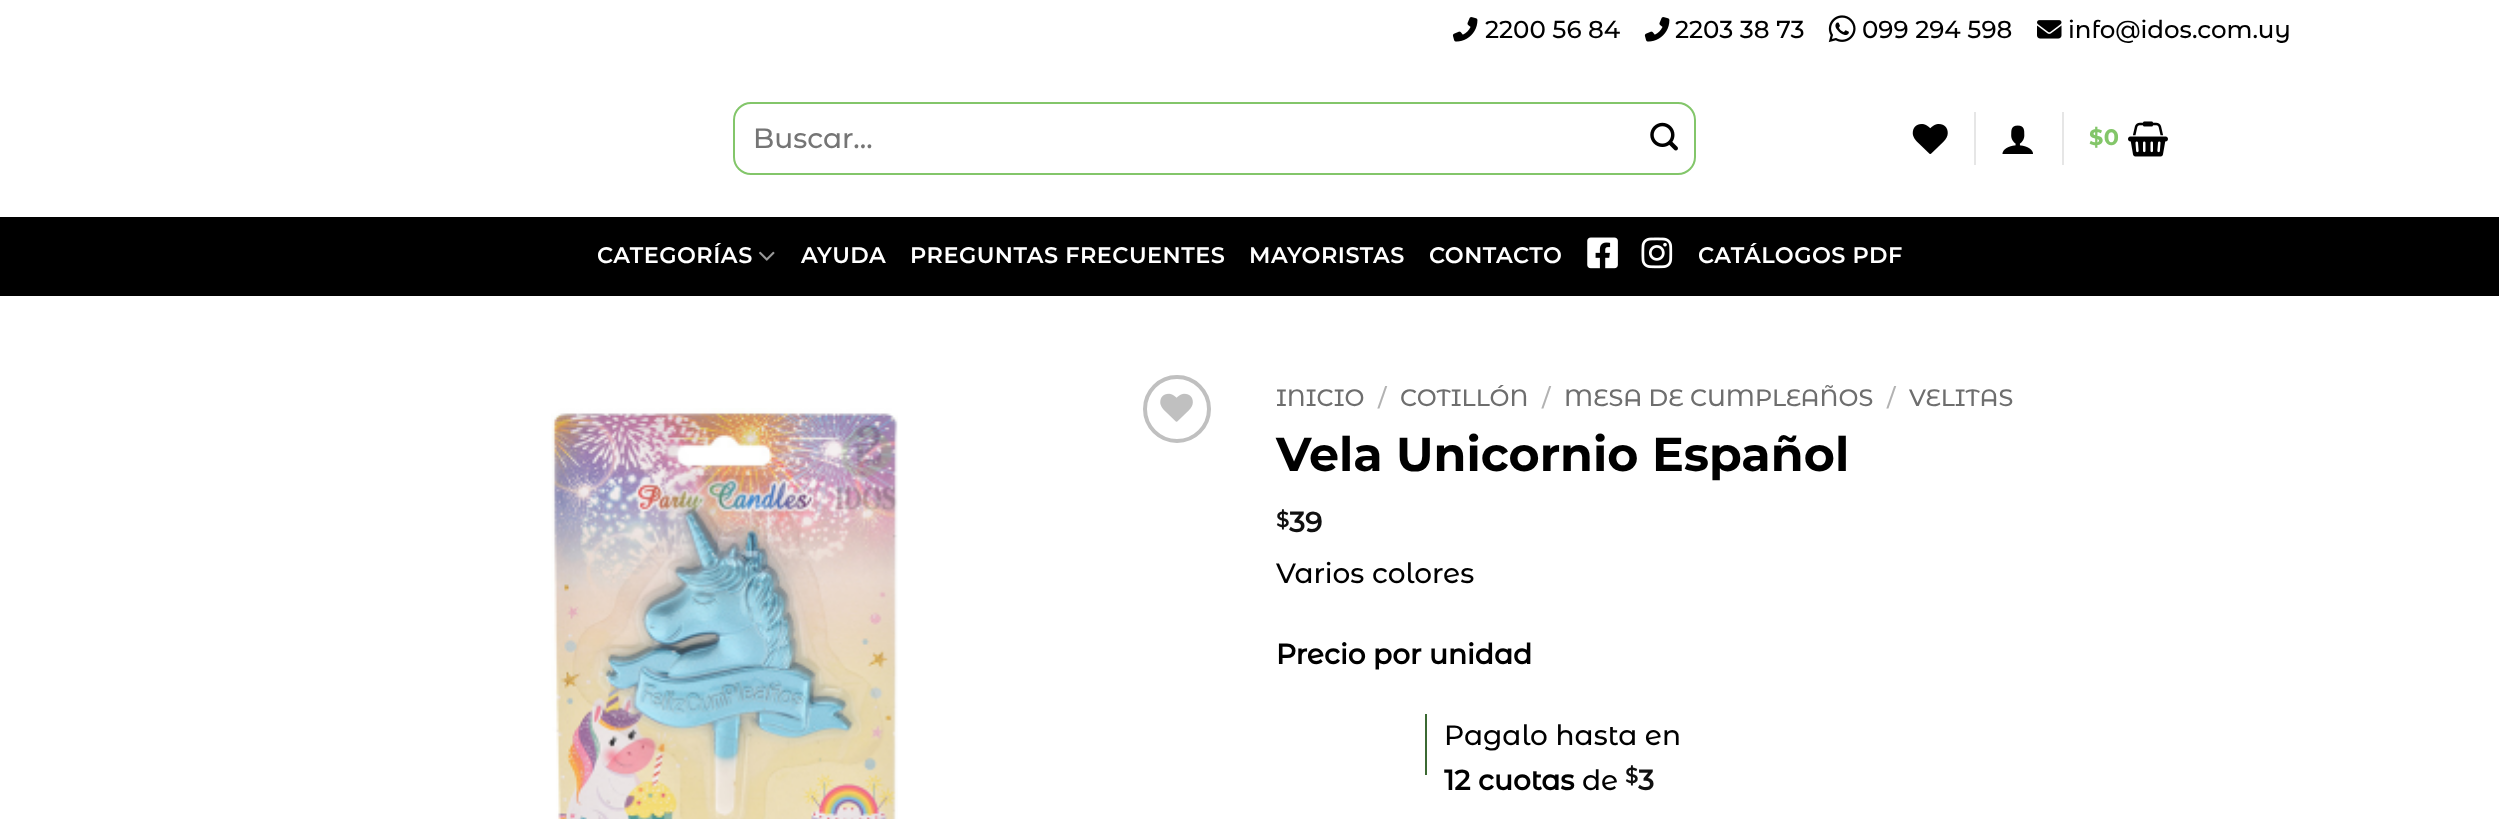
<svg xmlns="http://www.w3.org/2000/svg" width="2499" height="819">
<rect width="100%" height="100%" fill="#fff"/>
<image x="1452" y="17" width="26" height="25" href="media/1.png"/>
<text x="1485" y="38" style="font-family:Montserrat Alternates;font-size:24.5px;font-weight:500;fill:#000">2200 56 84</text>
<image x="1644" y="17" width="26" height="25" href="media/2.png"/>
<text x="1675" y="38" style="font-family:Montserrat Alternates;font-size:24.5px;font-weight:500;fill:#000">2203 38 73</text>
<image x="1828" y="15" width="28" height="28" href="media/3.png"/>
<text x="1862" y="38" style="font-family:Montserrat Alternates;font-size:24.5px;font-weight:500;fill:#000">099 294 598</text>
<image x="2037" y="20" width="25" height="19" href="media/4.png"/>
<text x="2068" y="38" style="font-family:Montserrat Alternates;font-size:24.5px;font-weight:500;fill:#000">info@idos.com.uy</text>
<rect x="734" y="103" width="961" height="71" rx="17" fill="none" stroke="#83c66a" stroke-width="2"/>
<text x="753" y="148" style="font-family:Montserrat Alternates;font-size:28px;font-weight:500;fill:#757575">Buscar…</text>
<image x="1650" y="122" width="28" height="29" href="media/5.png"/>
<image x="1912" y="124" width="36" height="30" href="media/6.png"/>
<rect x="1974" y="112" width="2" height="53" fill="#e6e6e6"/>
<image x="2002" y="125" width="31" height="29" href="media/7.png"/>
<rect x="2062" y="112" width="2" height="53" fill="#e6e6e6"/>
<text x="2089" y="145" style="font-family:Montserrat;font-size:22.4px;font-weight:bold;letter-spacing:0.5px;fill:#83c669">$0</text>
<image x="2128" y="121" width="40" height="36" href="media/8.png"/>
<rect y="217" width="2499" height="79" fill="#000"/>
<text x="597" y="263" style="font-family:Montserrat;font-size:22.4px;font-weight:600;letter-spacing:0.5px;fill:#fff">CATEGORÍAS</text>
<image x="759" y="251" width="16" height="10" href="media/9.png"/>
<text x="801" y="263" style="font-family:Montserrat;font-size:22.4px;font-weight:600;letter-spacing:0.5px;fill:#fff">AYUDA</text>
<text x="910" y="263" style="font-family:Montserrat;font-size:22.4px;font-weight:600;letter-spacing:0.5px;fill:#fff">PREGUNTAS FRECUENTES</text>
<text x="1249" y="263" style="font-family:Montserrat;font-size:22.4px;font-weight:600;letter-spacing:0.5px;fill:#fff">MAYORISTAS</text>
<text x="1429" y="263" style="font-family:Montserrat;font-size:22.4px;font-weight:600;letter-spacing:0.5px;fill:#fff">CONTACTO</text>
<image x="1587" y="237" width="31" height="32" href="media/10.png"/>
<image x="1641" y="237" width="32" height="32" href="media/11.png"/>
<text x="1698" y="263" style="font-family:Montserrat;font-size:22.4px;font-weight:600;letter-spacing:0.5px;fill:#fff">CATÁLOGOS PDF</text>
<image x="551" y="408" width="347" height="411" href="media/12.png"/>
<circle cx="1177" cy="409" r="32" fill="none" stroke="#c0c0c0" stroke-width="4"/>
<image x="1160" y="393" width="33" height="29" href="media/13.png"/>
<text x="1276" y="406" style="font-family:Montserrat Alternates;font-size:23.75px;font-weight:500;fill:#6e6e6e">INICIO</text>
<text x="1378" y="406" style="font-family:Montserrat Alternates;font-size:23.75px;font-weight:500;fill:#b2b2b2">/</text>
<text x="1400" y="406" style="font-family:Montserrat Alternates;font-size:23.75px;font-weight:500;fill:#6e6e6e">COTILLÓN</text>
<text x="1542" y="406" style="font-family:Montserrat Alternates;font-size:23.75px;font-weight:500;fill:#b2b2b2">/</text>
<text x="1564" y="406" style="font-family:Montserrat Alternates;font-size:23.75px;font-weight:500;fill:#6e6e6e">MESA DE CUMPLEAÑOS</text>
<text x="1887" y="406" style="font-family:Montserrat Alternates;font-size:23.75px;font-weight:500;fill:#b2b2b2">/</text>
<text x="1909" y="406" style="font-family:Montserrat Alternates;font-size:23.75px;font-weight:500;fill:#6e6e6e">VELITAS</text>
<text x="1276" y="471" style="font-family:Montserrat;font-size:47.6px;font-weight:bold;fill:#000">Vela Unicornio Español</text>
<text x="1276" y="527" style="font-family:Montserrat Alternates;font-size:21px;font-weight:bold;fill:#111">$</text>
<text x="1289" y="532" style="font-family:Montserrat Alternates;font-size:28px;font-weight:bold;fill:#111">39</text>
<text x="1276" y="583" style="font-family:Montserrat Alternates;font-size:28px;font-weight:500;fill:#000">Varios colores</text>
<text x="1276" y="664" style="font-family:Montserrat Alternates;font-size:28px;font-weight:bold;fill:#000">Precio por unidad</text>
<rect x="1425" y="714" width="2" height="61" fill="#3b6932"/>
<text x="1444" y="745" style="font-family:Montserrat Alternates;font-size:28px;font-weight:500;fill:#000">Pagalo hasta en</text>
<text x="1444" y="790" style="font-family:Montserrat Alternates;font-size:28px;font-weight:bold;fill:#000">12 cuotas</text>
<text x="1582" y="790" style="font-family:Montserrat Alternates;font-size:28px;font-weight:500;fill:#000">de</text>
<text x="1625" y="783" style="font-family:Montserrat Alternates;font-size:21px;font-weight:bold;fill:#111">$</text>
<text x="1638" y="790" style="font-family:Montserrat Alternates;font-size:28px;font-weight:bold;fill:#111">3</text>
</svg>
